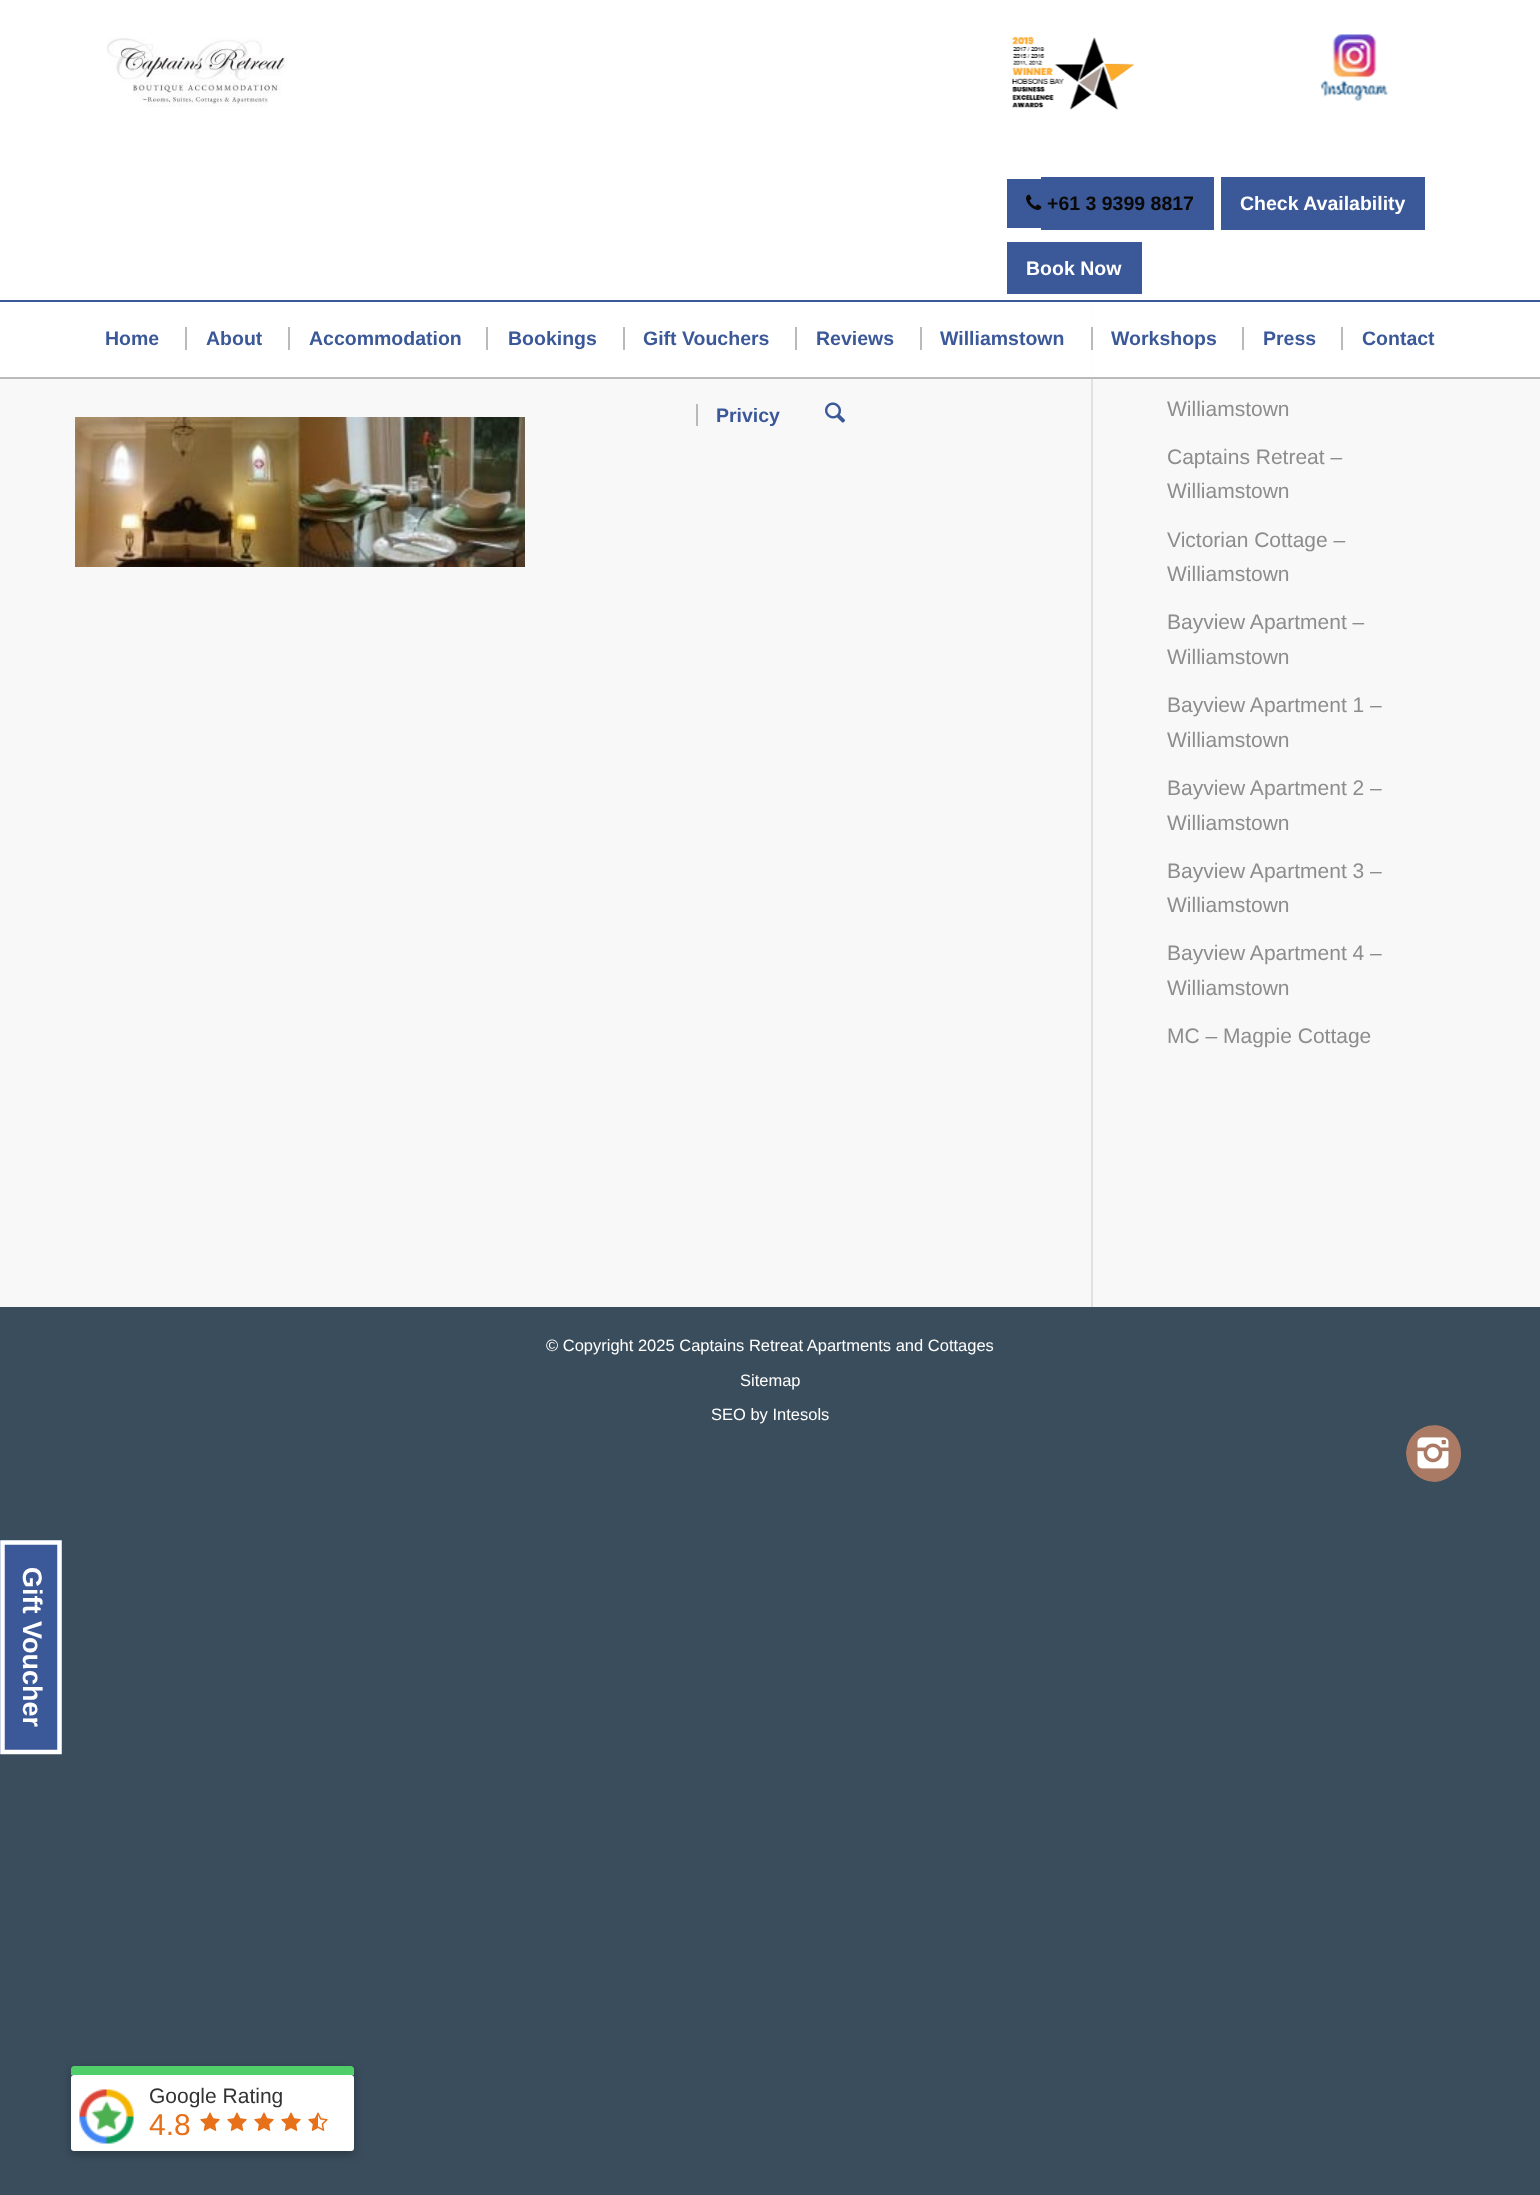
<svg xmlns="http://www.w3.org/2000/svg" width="1540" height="2195">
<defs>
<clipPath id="clip1"><rect x="1406" y="1425" width="60" height="57" rx="28.5"/></clipPath>
</defs>
<rect width="100%" height="100%" fill="#3a4d5c"/>
<rect y="276" width="1540" height="1031" fill="#f8f8f8"/>
<rect x="1091" y="294" width="2" height="1014" fill="#e1e1e1"/>
<rect y="377" width="1540" height="2" fill="#bababa"/>
<rect width="1540" height="276" fill="#fff"/>
<image x="107" y="37" width="180" height="70" href="media/1.png"/>
<image x="1012" y="36" width="123" height="74" href="media/2.png"/>
<image x="1320" y="34" width="69" height="67" href="media/3.png"/>
<rect x="1007" y="179" width="34" height="49" fill="#3b5898"/>
<rect x="1041" y="177" width="173" height="53" fill="#3b5898"/>
<image x="1026" y="194" width="16" height="16" href="media/4.png"/>
<text x="1047" y="210" style="font-family:Arimo;font-size:19.5px;font-weight:bold;fill:#0a0909">+61 3 9399 8817</text>
<rect x="1221" y="177" width="204" height="53" fill="#3b5898"/>
<text x="1240" y="210" style="font-family:Arimo;font-size:19.5px;font-weight:bold;fill:#fff">Check Availability</text>
<rect y="276" width="1540" height="101" fill="#fffffff2"/>
<rect x="1007" y="242" width="135" height="52" fill="#3b5898"/>
<text x="1026" y="275" style="font-family:Arimo;font-size:19.5px;font-weight:bold;fill:#fff">Book Now</text>
<rect y="300" width="1540" height="2" fill="#3b5898"/>
<text x="105" y="345" style="font-family:Arimo;font-size:19.5px;font-weight:bold;fill:#3b5898">Home</text>
<text x="206" y="345" style="font-family:Arimo;font-size:19.5px;font-weight:bold;fill:#3b5898">About</text>
<rect x="185" y="327" width="2" height="23" fill="#bababa"/>
<text x="309" y="345" style="font-family:Arimo;font-size:19.5px;font-weight:bold;fill:#3b5898">Accommodation</text>
<rect x="288" y="327" width="2" height="23" fill="#bababa"/>
<text x="508" y="345" style="font-family:Arimo;font-size:19.5px;font-weight:bold;fill:#3b5898">Bookings</text>
<rect x="486" y="327" width="2" height="23" fill="#bababa"/>
<text x="643" y="345" style="font-family:Arimo;font-size:19.5px;font-weight:bold;fill:#3b5898">Gift Vouchers</text>
<rect x="623" y="327" width="2" height="23" fill="#bababa"/>
<text x="816" y="345" style="font-family:Arimo;font-size:19.5px;font-weight:bold;fill:#3b5898">Reviews</text>
<rect x="795" y="327" width="2" height="23" fill="#bababa"/>
<text x="940" y="345" style="font-family:Arimo;font-size:19.5px;font-weight:bold;fill:#3b5898">Williamstown</text>
<rect x="920" y="327" width="2" height="23" fill="#bababa"/>
<text x="1111" y="345" style="font-family:Arimo;font-size:19.5px;font-weight:bold;fill:#3b5898">Workshops</text>
<rect x="1091" y="327" width="2" height="23" fill="#bababa"/>
<text x="1263" y="345" style="font-family:Arimo;font-size:19.5px;font-weight:bold;fill:#3b5898">Press</text>
<rect x="1242" y="327" width="2" height="23" fill="#bababa"/>
<text x="1362" y="345" style="font-family:Arimo;font-size:19.5px;font-weight:bold;fill:#3b5898">Contact</text>
<rect x="1341" y="327" width="2" height="23" fill="#bababa"/>
<text x="716" y="422" style="font-family:Arimo;font-size:19.5px;font-weight:bold;fill:#3b5898">Privicy</text>
<rect x="696" y="404" width="2" height="22" fill="#bababa"/>
<image x="825" y="402" width="21" height="21" href="media/5.png"/>
<image x="75" y="417" width="450" height="150" href="media/6.png"/>
<text x="1167" y="416" style="font-family:Arimo;font-size:21px;fill:#8d8d8d">Williamstown</text>
<text x="1167" y="464" style="font-family:Arimo;font-size:21px;fill:#8d8d8d">Captains Retreat –</text>
<text x="1167" y="498" style="font-family:Arimo;font-size:21px;fill:#8d8d8d">Williamstown</text>
<text x="1167" y="547" style="font-family:Arimo;font-size:21px;fill:#8d8d8d">Victorian Cottage –</text>
<text x="1167" y="581" style="font-family:Arimo;font-size:21px;fill:#8d8d8d">Williamstown</text>
<text x="1167" y="629" style="font-family:Arimo;font-size:21px;fill:#8d8d8d">Bayview Apartment –</text>
<text x="1167" y="664" style="font-family:Arimo;font-size:21px;fill:#8d8d8d">Williamstown</text>
<text x="1167" y="712" style="font-family:Arimo;font-size:21px;fill:#8d8d8d">Bayview Apartment 1 –</text>
<text x="1167" y="747" style="font-family:Arimo;font-size:21px;fill:#8d8d8d">Williamstown</text>
<text x="1167" y="795" style="font-family:Arimo;font-size:21px;fill:#8d8d8d">Bayview Apartment 2 –</text>
<text x="1167" y="830" style="font-family:Arimo;font-size:21px;fill:#8d8d8d">Williamstown</text>
<text x="1167" y="878" style="font-family:Arimo;font-size:21px;fill:#8d8d8d">Bayview Apartment 3 –</text>
<text x="1167" y="912" style="font-family:Arimo;font-size:21px;fill:#8d8d8d">Williamstown</text>
<text x="1167" y="960" style="font-family:Arimo;font-size:21px;fill:#8d8d8d">Bayview Apartment 4 –</text>
<text x="1167" y="995" style="font-family:Arimo;font-size:21px;fill:#8d8d8d">Williamstown</text>
<text x="1167" y="1043" style="font-family:Arimo;font-size:21px;fill:#8d8d8d">MC – Magpie Cottage</text>
<rect x="1091" y="1307" width="2" height="1" fill="#3a4d5c"/>
<text x="546" y="1351" style="font-family:Arimo;font-size:16.5px;fill:#fff">© Copyright 2025 Captains Retreat Apartments and Cottages</text>
<text x="740" y="1386" style="font-family:Arimo;font-size:16.5px;fill:#fff">Sitemap</text>
<text x="711" y="1420" style="font-family:Arimo;font-size:16.5px;fill:#fff">SEO by Intesols</text>
<g clip-path="url(#clip1)">
<path d="M1434.5 1425h-1c15 0 27.5 12.5 27.5 27.5v2c0 15-12.5 27.5-27.5 27.5h1c-15.5 0-28.5-13-28.5-28.5c0-15.5 13-28.5 28.5-28.5z" fill="#aa7a64"/>
</g>
<image x="1417" y="1437" width="32" height="32" href="media/7.png"/>
<rect y="1540" width="62" height="214" fill="#3b5898"/>
<path d="M59.5 1542.5v209.5h-57v-209.5z" fill="none" stroke="#fff" stroke-width="4.5"/>
<text x="23" y="1567" transform="rotate(90 23 1567)" style="font-family:Arimo;font-size:27px;font-weight:bold;fill:#fff">Gift Voucher</text>
<rect x="71" y="2069" width="283" height="85" fill="#00000042" filter="blur(4px)"/>
<path d="M74 2066h277c1.5 0 3 1.5 3 3v6h-283v-6c0-1.5 1.5-3 3-3z" fill="#4fce6a"/>
<rect x="71" y="2075" width="283" height="76" rx="3" fill="#fff"/>
<image x="79" y="2089" width="55" height="55" href="media/8.png"/>
<text x="149" y="2103" style="font-family:Liberation Sans;font-size:21px;fill:#333">Google Rating</text>
<text x="149" y="2135" style="font-family:Liberation Sans;font-size:30px;fill:#e7711b">4.8</text>
<image x="200" y="2112" width="20" height="19" href="media/9.png"/>
<image x="227" y="2112" width="20" height="19" href="media/9.png"/>
<image x="254" y="2112" width="20" height="19" href="media/9.png"/>
<image x="281" y="2112" width="20" height="19" href="media/9.png"/>
<image x="308" y="2112" width="20" height="19" href="media/10.png"/>
</svg>
